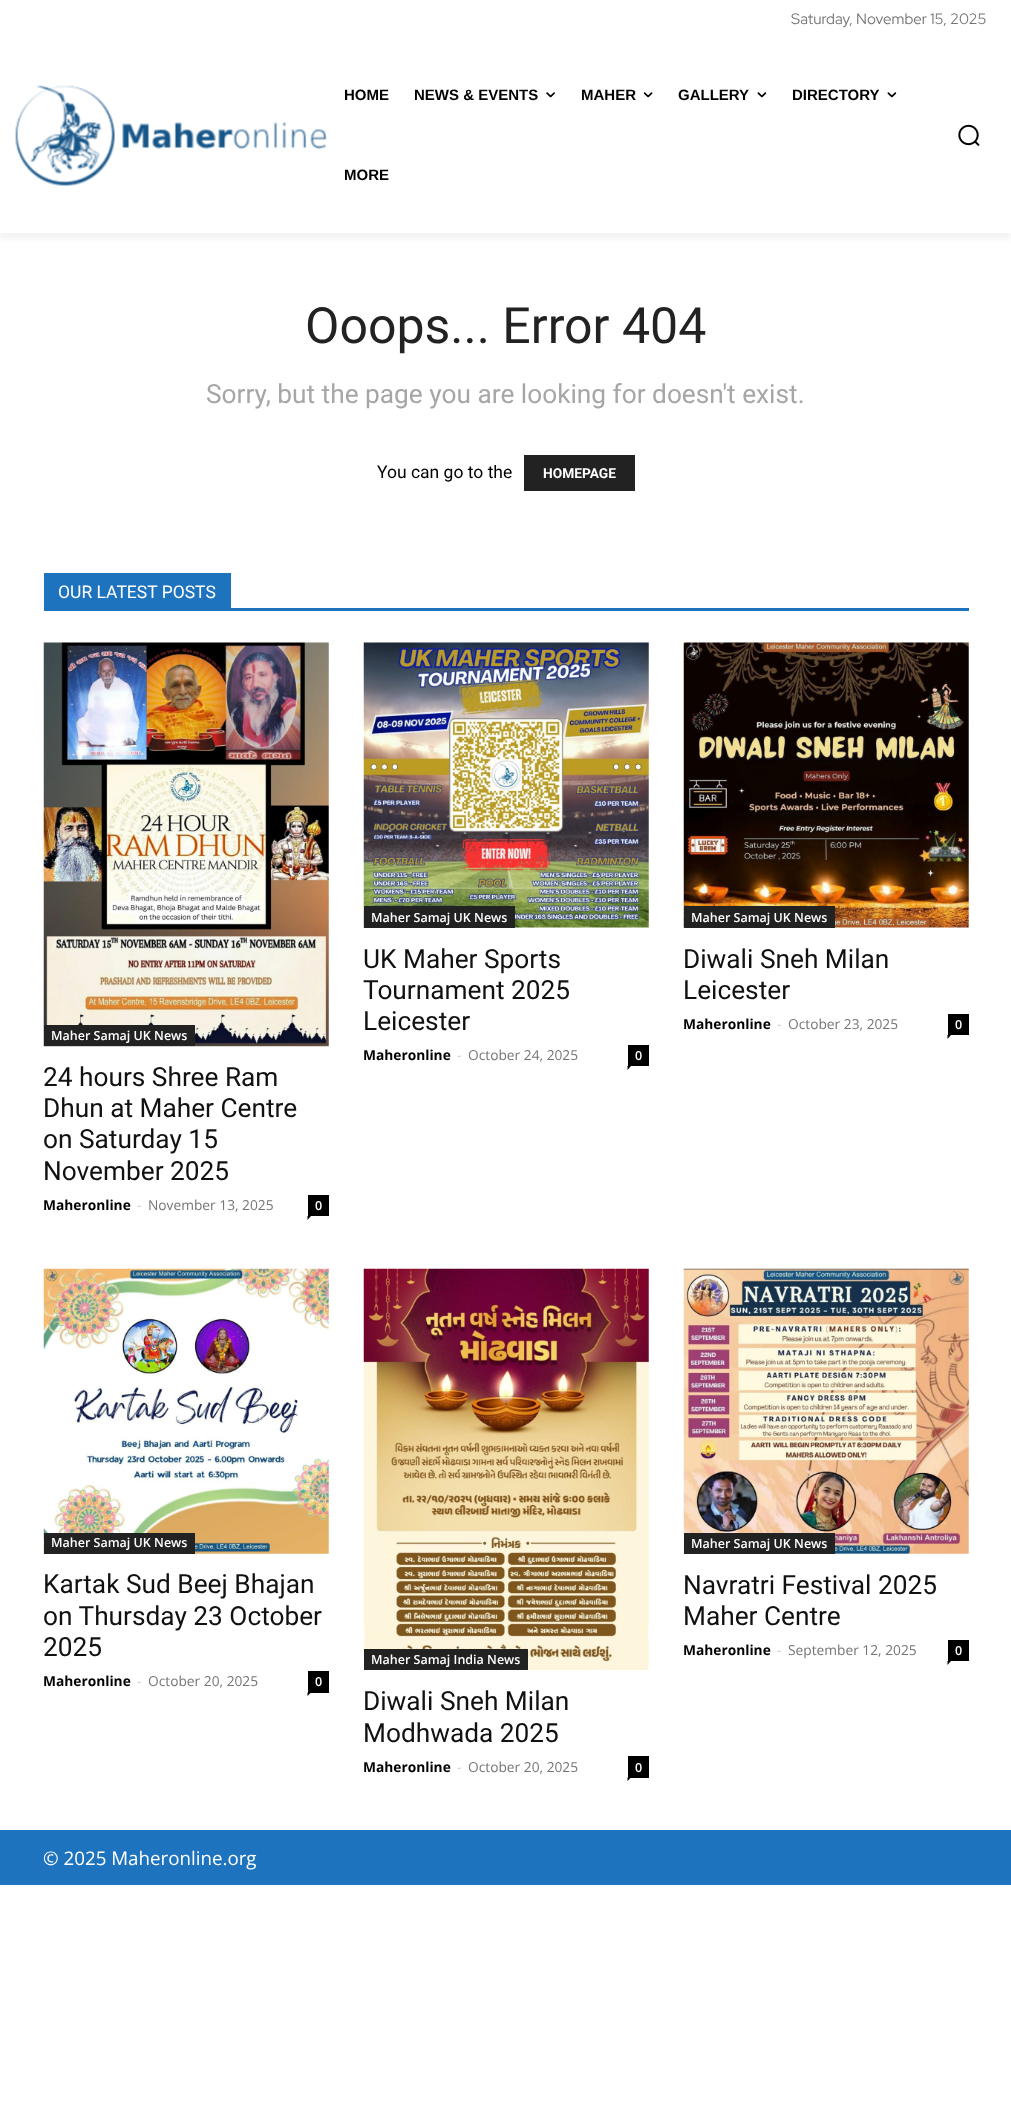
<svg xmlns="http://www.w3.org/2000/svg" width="1011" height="2102">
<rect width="100%" height="100%" fill="#fff"/>
<text x="791" y="24" style="font-family:Red Hat Display;font-size:15px;fill:#767676">Saturday, November 15, 2025</text>
<rect y="44" width="1011" height="195" fill="#f4f4f4" filter="blur(2.5px)"/>
<rect y="42" width="1011" height="191" fill="#fff"/>
<image x="15" y="85" width="312" height="101" href="media/1.png"/>
<text x="344" y="100" style="font-family:Liberation Sans;font-size:15px;font-weight:bold;fill:#000">HOME</text>
<text x="414" y="100" style="font-family:Liberation Sans;font-size:15px;font-weight:bold;fill:#000">NEWS &amp; EVENTS</text>
<image x="546" y="92" width="9" height="6" href="media/2.png"/>
<text x="581" y="100" style="font-family:Liberation Sans;font-size:15px;font-weight:bold;fill:#000">MAHER</text>
<image x="643" y="92" width="10" height="6" href="media/3.png"/>
<text x="678" y="100" style="font-family:Liberation Sans;font-size:15px;font-weight:bold;fill:#000">GALLERY</text>
<image x="757" y="92" width="10" height="6" href="media/4.png"/>
<text x="792" y="100" style="font-family:Liberation Sans;font-size:15px;font-weight:bold;fill:#000">DIRECTORY</text>
<image x="887" y="92" width="10" height="6" href="media/4.png"/>
<text x="344" y="180" style="font-family:Liberation Sans;font-size:15px;font-weight:bold;fill:#000">MORE</text>
<image x="958" y="124" width="22" height="22" href="media/5.png"/>
<text x="305" y="343" style="font-family:Roboto;font-size:50px;fill:#222">Ooops... Error 404</text>
<text x="206" y="403" style="font-family:Roboto;font-size:26.25px;fill:#a6a6a6">Sorry, but the page you are looking for doesn't exist.</text>
<text x="377" y="478" style="font-family:Roboto;font-size:17.5px;fill:#000">You can go to the</text>
<rect x="524" y="455" width="111" height="36" fill="#222"/>
<text x="543" y="478" style="font-family:Roboto;font-size:13.75px;font-weight:bold;fill:#fff">HOMEPAGE</text>
<rect x="44" y="608" width="925" height="3" fill="#1e73be"/>
<rect x="44" y="573" width="187" height="35" fill="#1e73be"/>
<text x="58" y="598" style="font-family:Roboto;font-size:17.5px;fill:#fff">OUR LATEST POSTS</text>
<image x="363" y="642" width="286" height="286" href="media/6.png"/>
<rect x="364" y="906" width="151" height="22" fill="#222"/>
<text x="371" y="922" style="font-family:Open Sans;font-size:12.5px;font-weight:600;fill:#fff">Maher Samaj UK News</text>
<text x="363" y="968" style="font-family:Roboto;font-size:26.25px;fill:#111">UK Maher Sports</text>
<text x="363" y="999" style="font-family:Roboto;font-size:26.25px;fill:#111">Tournament 2025</text>
<text x="363" y="1030" style="font-family:Roboto;font-size:26.25px;fill:#111">Leicester</text>
<text x="363" y="1060" style="font-family:Open Sans;font-size:13.75px;font-weight:bold;fill:#000">Maheronline</text>
<text x="457" y="1060" style="font-family:Open Sans;font-size:13.75px;fill:#ccc">-</text>
<text x="468" y="1060" style="font-family:Open Sans;font-size:13.75px;fill:#767676">October 24, 2025</text>
<rect x="628" y="1045" width="21" height="21" fill="#000"/>
<text x="635" y="1060" style="font-family:Open Sans;font-size:12.5px;font-weight:600;fill:#fff">0</text>
<path d="M627.5 1066h3.5l-3.5 4z" fill="#000"/>
<image x="683" y="642" width="286" height="286" href="media/7.png"/>
<rect x="684" y="906" width="151" height="22" fill="#222"/>
<text x="691" y="922" style="font-family:Open Sans;font-size:12.5px;font-weight:600;fill:#fff">Maher Samaj UK News</text>
<text x="683" y="968" style="font-family:Roboto;font-size:26.25px;fill:#111">Diwali Sneh Milan</text>
<text x="683" y="999" style="font-family:Roboto;font-size:26.25px;fill:#111">Leicester</text>
<text x="683" y="1029" style="font-family:Open Sans;font-size:13.75px;font-weight:bold;fill:#000">Maheronline</text>
<text x="777" y="1029" style="font-family:Open Sans;font-size:13.75px;fill:#ccc">-</text>
<text x="788" y="1029" style="font-family:Open Sans;font-size:13.75px;fill:#767676">October 23, 2025</text>
<rect x="948" y="1014" width="21" height="21" fill="#000"/>
<text x="955" y="1029" style="font-family:Open Sans;font-size:12.5px;font-weight:600;fill:#fff">0</text>
<path d="M947.5 1035h3.5l-3.5 4z" fill="#000"/>
<image x="43" y="642" width="286" height="405" href="media/8.png"/>
<rect x="44" y="1025" width="151" height="21" fill="#222"/>
<text x="51" y="1040" style="font-family:Open Sans;font-size:12.5px;font-weight:600;fill:#fff">Maher Samaj UK News</text>
<text x="43" y="1086" style="font-family:Roboto;font-size:26.25px;fill:#111">24 hours Shree Ram</text>
<text x="43" y="1117" style="font-family:Roboto;font-size:26.25px;fill:#111">Dhun at Maher Centre</text>
<text x="43" y="1148" style="font-family:Roboto;font-size:26.25px;fill:#111">on Saturday 15</text>
<text x="43" y="1180" style="font-family:Roboto;font-size:26.25px;fill:#111">November 2025</text>
<text x="43" y="1210" style="font-family:Open Sans;font-size:13.75px;font-weight:bold;fill:#000">Maheronline</text>
<text x="137" y="1210" style="font-family:Open Sans;font-size:13.75px;fill:#ccc">-</text>
<text x="148" y="1210" style="font-family:Open Sans;font-size:13.75px;fill:#767676">November 13, 2025</text>
<rect x="308" y="1195" width="21" height="21" fill="#000"/>
<text x="315" y="1210" style="font-family:Open Sans;font-size:12.5px;font-weight:600;fill:#fff">0</text>
<path d="M307.5 1216h3.5l-3.5 4z" fill="#000"/>
<image x="43" y="1268" width="286" height="286" href="media/9.png"/>
<rect x="44" y="1533" width="151" height="21" fill="#222"/>
<text x="51" y="1547" style="font-family:Open Sans;font-size:12.5px;font-weight:600;fill:#fff">Maher Samaj UK News</text>
<text x="43" y="1593" style="font-family:Roboto;font-size:26.25px;fill:#111">Kartak Sud Beej Bhajan</text>
<text x="43" y="1625" style="font-family:Roboto;font-size:26.25px;fill:#111">on Thursday 23 October</text>
<text x="43" y="1656" style="font-family:Roboto;font-size:26.25px;fill:#111">2025</text>
<text x="43" y="1686" style="font-family:Open Sans;font-size:13.75px;font-weight:bold;fill:#000">Maheronline</text>
<text x="137" y="1686" style="font-family:Open Sans;font-size:13.75px;fill:#ccc">-</text>
<text x="148" y="1686" style="font-family:Open Sans;font-size:13.75px;fill:#767676">October 20, 2025</text>
<rect x="308" y="1671" width="21" height="22" fill="#000"/>
<text x="315" y="1686" style="font-family:Open Sans;font-size:12.5px;font-weight:600;fill:#fff">0</text>
<path d="M307.5 1692.5h3.5l-3.5 3.5z" fill="#000"/>
<image x="683" y="1268" width="286" height="286" href="media/10.png"/>
<rect x="684" y="1533" width="151" height="21" fill="#222"/>
<text x="691" y="1548" style="font-family:Open Sans;font-size:12.5px;font-weight:600;fill:#fff">Maher Samaj UK News</text>
<text x="683" y="1594" style="font-family:Roboto;font-size:26.25px;fill:#111">Navratri Festival 2025</text>
<text x="683" y="1625" style="font-family:Roboto;font-size:26.25px;fill:#111">Maher Centre</text>
<text x="683" y="1655" style="font-family:Open Sans;font-size:13.75px;font-weight:bold;fill:#000">Maheronline</text>
<text x="777" y="1655" style="font-family:Open Sans;font-size:13.75px;fill:#ccc">-</text>
<text x="788" y="1655" style="font-family:Open Sans;font-size:13.75px;fill:#767676">September 12, 2025</text>
<rect x="948" y="1640" width="21" height="21" fill="#000"/>
<text x="955" y="1655" style="font-family:Open Sans;font-size:12.5px;font-weight:600;fill:#fff">0</text>
<path d="M947.5 1661h3.5l-3.5 4z" fill="#000"/>
<image x="363" y="1268" width="286" height="402" href="media/11.png"/>
<rect x="364" y="1649" width="164" height="21" fill="#222"/>
<text x="371" y="1664" style="font-family:Open Sans;font-size:12.5px;font-weight:600;fill:#fff">Maher Samaj India News</text>
<text x="363" y="1710" style="font-family:Roboto;font-size:26.25px;fill:#111">Diwali Sneh Milan</text>
<text x="363" y="1742" style="font-family:Roboto;font-size:26.25px;fill:#111">Modhwada 2025</text>
<text x="363" y="1772" style="font-family:Open Sans;font-size:13.75px;font-weight:bold;fill:#000">Maheronline</text>
<text x="457" y="1772" style="font-family:Open Sans;font-size:13.75px;fill:#ccc">-</text>
<text x="468" y="1772" style="font-family:Open Sans;font-size:13.75px;fill:#767676">October 20, 2025</text>
<rect x="628" y="1756" width="21" height="22" fill="#000"/>
<text x="635" y="1772" style="font-family:Open Sans;font-size:12.5px;font-weight:600;fill:#fff">0</text>
<path d="M627.5 1777.5h3.5l-3.5 3.5z" fill="#000"/>
<rect y="1830" width="1011" height="55" fill="#1e73be"/>
<text x="43" y="1865" style="font-family:Open Sans;font-size:18.75px;fill:#fff">© 2025 Maheronline.org</text>
</svg>
